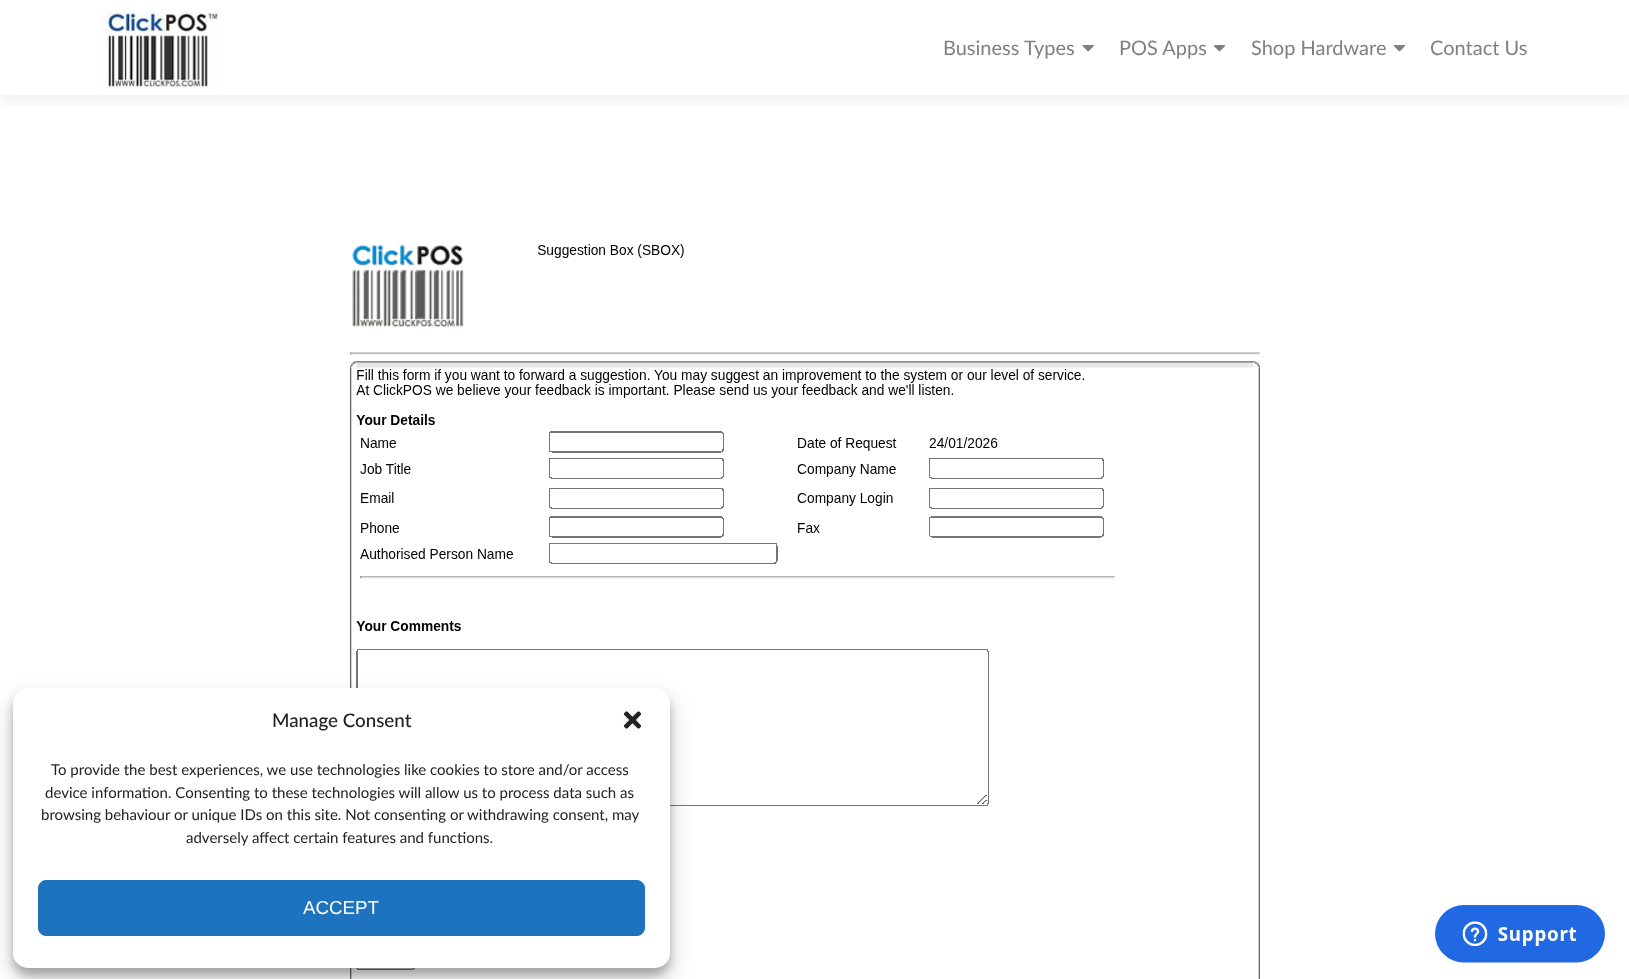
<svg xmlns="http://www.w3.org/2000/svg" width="1629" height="979">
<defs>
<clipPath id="clip1"><rect x="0" y="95" width="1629" height="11"/></clipPath>
</defs>
<rect width="100%" height="100%" fill="#fff"/>
<g clip-path="url(#clip1)">
<rect y="6" width="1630" height="95" fill="#32323214" filter="blur(7px)"/>
</g>
<image x="102" y="11" width="118" height="78" href="media/1.png"/>
<text x="943" y="55" style="font-family:Lato;font-size:20px;fill:#808080">Business Types</text>
<image x="1082" y="45" width="12" height="7" href="media/2.png"/>
<text x="1119" y="55" style="font-family:Lato;font-size:20px;fill:#808080">POS Apps</text>
<image x="1213" y="45" width="13" height="7" href="media/3.png"/>
<text x="1251" y="55" style="font-family:Lato;font-size:20px;fill:#808080">Shop Hardware</text>
<image x="1393" y="45" width="13" height="7" href="media/3.png"/>
<text x="1430" y="55" style="font-family:Lato;font-size:20px;fill:#808080">Contact Us</text>
<image x="350" y="244" width="910" height="735" href="media/5.png"/>
<rect x="13" y="695" width="657" height="280" rx="15" fill="#0000003b" filter="blur(4px)"/>
<rect x="13" y="700" width="657" height="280" rx="15" fill="#00000030" filter="blur(12.5px)"/>
<rect x="13" y="688" width="657" height="280" rx="15" fill="#fff"/>
<text x="272" y="727" style="font-family:Lato;font-size:18.75px;font-weight:500;fill:#222">Manage Consent</text>
<image x="623" y="711" width="19" height="18" href="media/4.png"/>
<text x="51" y="775" style="font-family:Lato;font-size:15px;fill:#222">To provide the best experiences, we use technologies like cookies to store and/or access</text>
<text x="45" y="798" style="font-family:Lato;font-size:15px;fill:#222">device information. Consenting to these technologies will allow us to process data such as</text>
<text x="41" y="820" style="font-family:Lato;font-size:15px;fill:#222">browsing behaviour or unique IDs on this site. Not consenting or withdrawing consent, may</text>
<text x="186" y="843" style="font-family:Lato;font-size:15px;fill:#222">adversely affect certain features and functions.</text>
<rect x="38.5" y="880.5" width="606" height="55" rx="7.5" fill="#1e73be" stroke="#1e73be"/>
<text x="303" y="914" style="font-family:Liberation Sans;font-size:18.75px;fill:#fff">ACCEPT</text>
<image x="1435" y="905" width="170" height="58" href="media/6.png"/>
</svg>
